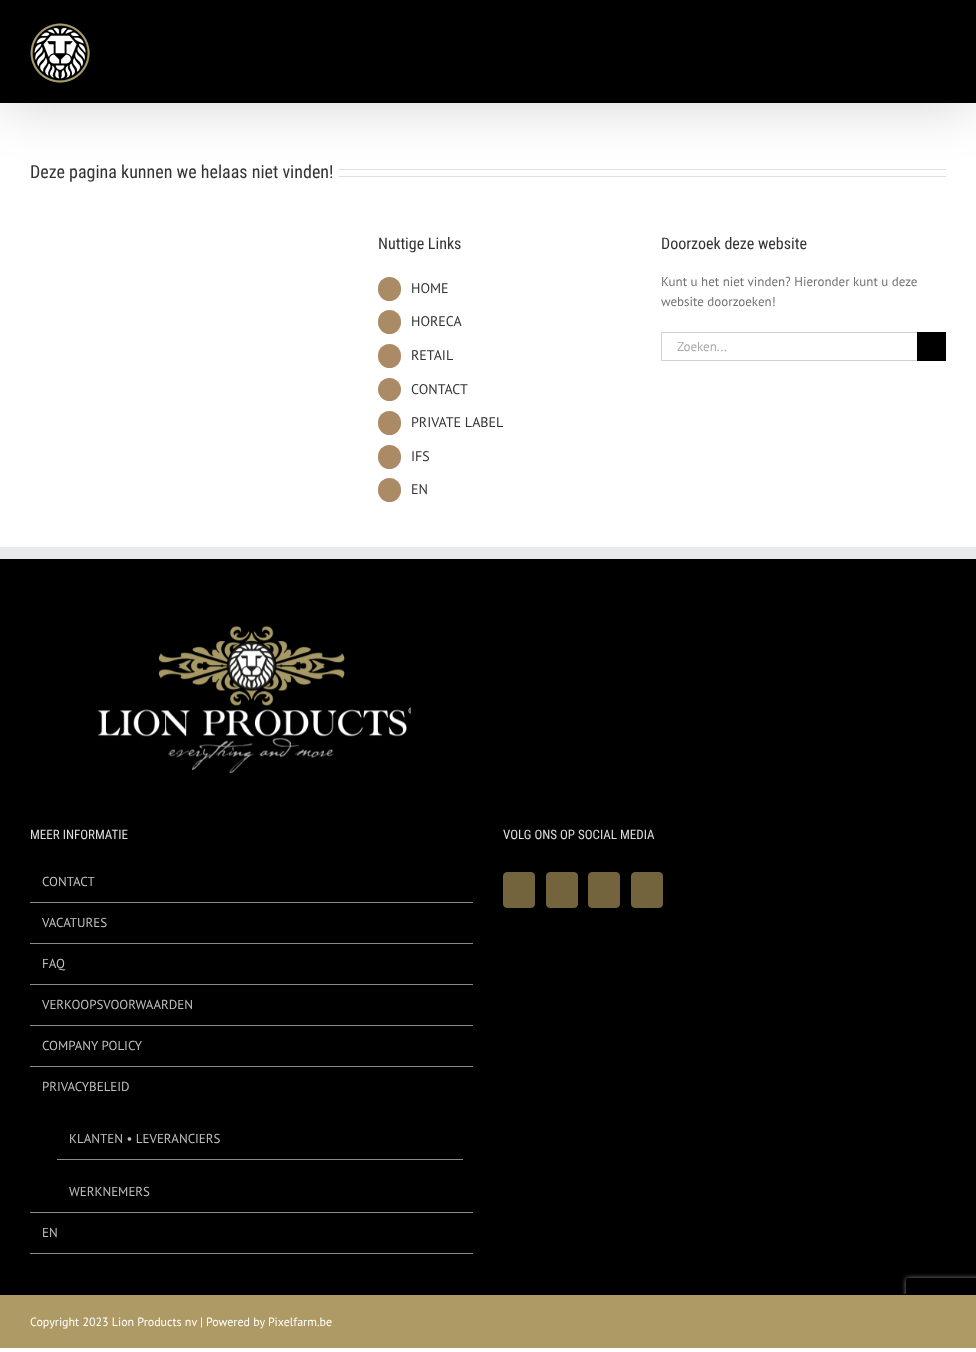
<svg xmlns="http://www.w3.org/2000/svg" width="976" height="1352">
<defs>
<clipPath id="clip1"><path d="M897 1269h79v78h-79zm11 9h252c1 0 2 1 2 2v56c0 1-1 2-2 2h-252c-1 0-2-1-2-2v-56c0-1 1-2 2-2z" clip-rule="evenodd"/></clipPath>
</defs>
<rect width="100%" height="100%" fill="#fff"/>
<rect x="339" y="169" width="607" height="1" fill="#e0dede"/>
<rect x="339" y="176" width="607" height="1" fill="#e0dede"/>
<rect x="2" y="12" width="972" height="99" fill="#00000024" filter="blur(25px)"/>
<rect width="976" height="103" fill="#000"/>
<image x="30" y="23" width="60" height="60" href="media/1.png"/>
<text x="30" y="178" style="font-family:Roboto Condensed;font-size:18px;fill:#333">Deze pagina kunnen we helaas niet vinden!</text>
<text x="378" y="249" style="font-family:Roboto Condensed;font-size:16px;fill:#333">Nuttige Links</text>
<rect x="378" y="277" width="23" height="24" rx="11.5" fill="#ab8b65"/>
<text x="411" y="293" style="font-family:PT Sans;font-size:14px;fill:#333">HOME</text>
<rect x="378" y="310" width="23" height="24" rx="11.5" fill="#ab8b65"/>
<text x="411" y="326" style="font-family:PT Sans;font-size:14px;fill:#333">HORECA</text>
<rect x="378" y="344" width="23" height="24" rx="11.5" fill="#ab8b65"/>
<text x="411" y="360" style="font-family:PT Sans;font-size:14px;fill:#333">RETAIL</text>
<circle cx="389.5" cy="389.5" r="11.5" fill="#ab8b65"/>
<text x="411" y="394" style="font-family:PT Sans;font-size:14px;fill:#333">CONTACT</text>
<rect x="378" y="411" width="23" height="24" rx="11.5" fill="#ab8b65"/>
<text x="411" y="427" style="font-family:PT Sans;font-size:14px;fill:#333">PRIVATE LABEL</text>
<rect x="378" y="445" width="23" height="24" rx="11.5" fill="#ab8b65"/>
<text x="411" y="461" style="font-family:PT Sans;font-size:14px;fill:#333">IFS</text>
<rect x="378" y="478" width="23" height="24" rx="11.5" fill="#ab8b65"/>
<text x="411" y="494" style="font-family:PT Sans;font-size:14px;fill:#333">EN</text>
<text x="661" y="249" style="font-family:Roboto Condensed;font-size:16px;fill:#333">Doorzoek deze website</text>
<text x="661" y="286" style="font-family:PT Sans;font-size:13px;fill:#747474">Kunt u het niet vinden? Hieronder kunt u deze</text>
<text x="661" y="306" style="font-family:PT Sans;font-size:13px;fill:#747474">website doorzoeken!</text>
<rect x="661" y="332" width="256" height="1" fill="#d2d2d2"/>
<rect x="661" y="360" width="256" height="1" fill="#d2d2d2"/>
<rect x="661" y="332" width="1" height="29" fill="#d2d2d2"/>
<text x="677" y="351" style="font-family:PT Sans;font-size:13px;fill:#aaa9a9">Zoeken...</text>
<rect x="917" y="332" width="29" height="29" fill="#000"/>
<rect y="559" width="976" height="735" fill="#000"/>
<rect y="547" width="976" height="12" fill="#e9eaee"/>
<image x="98" y="626" width="313" height="148" href="media/2.png"/>
<text x="30" y="839" style="font-family:Roboto Condensed;font-size:13px;fill:#ddd">MEER INFORMATIE</text>
<rect x="30" y="902" width="443" height="1" fill="#8c8989"/>
<text x="42" y="886" style="font-family:PT Sans;font-size:13px;fill:#bfbfbf">CONTACT</text>
<rect x="30" y="943" width="443" height="1" fill="#8c8989"/>
<text x="42" y="927" style="font-family:PT Sans;font-size:13px;fill:#bfbfbf">VACATURES</text>
<rect x="30" y="984" width="443" height="1" fill="#8c8989"/>
<text x="42" y="968" style="font-family:PT Sans;font-size:13px;fill:#bfbfbf">FAQ</text>
<rect x="30" y="1025" width="443" height="1" fill="#8c8989"/>
<text x="42" y="1009" style="font-family:PT Sans;font-size:13px;fill:#bfbfbf">VERKOOPSVOORWAARDEN</text>
<rect x="30" y="1066" width="443" height="1" fill="#8c8989"/>
<text x="42" y="1050" style="font-family:PT Sans;font-size:13px;fill:#bfbfbf">COMPANY POLICY</text>
<rect x="30" y="1212" width="443" height="1" fill="#8c8989"/>
<text x="42" y="1091" style="font-family:PT Sans;font-size:13px;fill:#bfbfbf">PRIVACYBELEID</text>
<rect x="57" y="1159" width="406" height="1" fill="#8c8989"/>
<text x="69" y="1143" style="font-family:PT Sans;font-size:13px;fill:#bfbfbf">KLANTEN • LEVERANCIERS</text>
<text x="69" y="1196" style="font-family:PT Sans;font-size:13px;fill:#bfbfbf">WERKNEMERS</text>
<rect x="30" y="1253" width="443" height="1" fill="#8c8989"/>
<text x="42" y="1237" style="font-family:PT Sans;font-size:13px;fill:#bfbfbf">EN</text>
<text x="503" y="839" style="font-family:Roboto Condensed;font-size:13px;fill:#ddd">VOLG ONS OP SOCIAL MEDIA</text>
<rect x="503.5" y="872.5" width="31" height="35" rx="3.5" fill="#73643d" stroke="#73643d"/>
<rect x="546.5" y="872.5" width="31" height="35" rx="3.5" fill="#73643d" stroke="#73643d"/>
<rect x="588.5" y="872.5" width="31" height="35" rx="3.5" fill="#73643d" stroke="#73643d"/>
<rect x="631.5" y="872.5" width="31" height="35" rx="3.5" fill="#73643d" stroke="#73643d"/>
<g clip-path="url(#clip1)">
<rect x="906" y="1278" width="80" height="60" rx="2" fill="#808080" filter="blur(2.5px)"/>
</g>
<rect y="1295" width="976" height="53" fill="#ae9a64"/>
<rect y="1294" width="976" height="1" fill="#000"/>
<text x="30" y="1326" style="font-family:PT Sans;font-size:12px;fill:#fff">Copyright 2023 Lion Products nv | Powered by Pixelfarm.be</text>
</svg>
